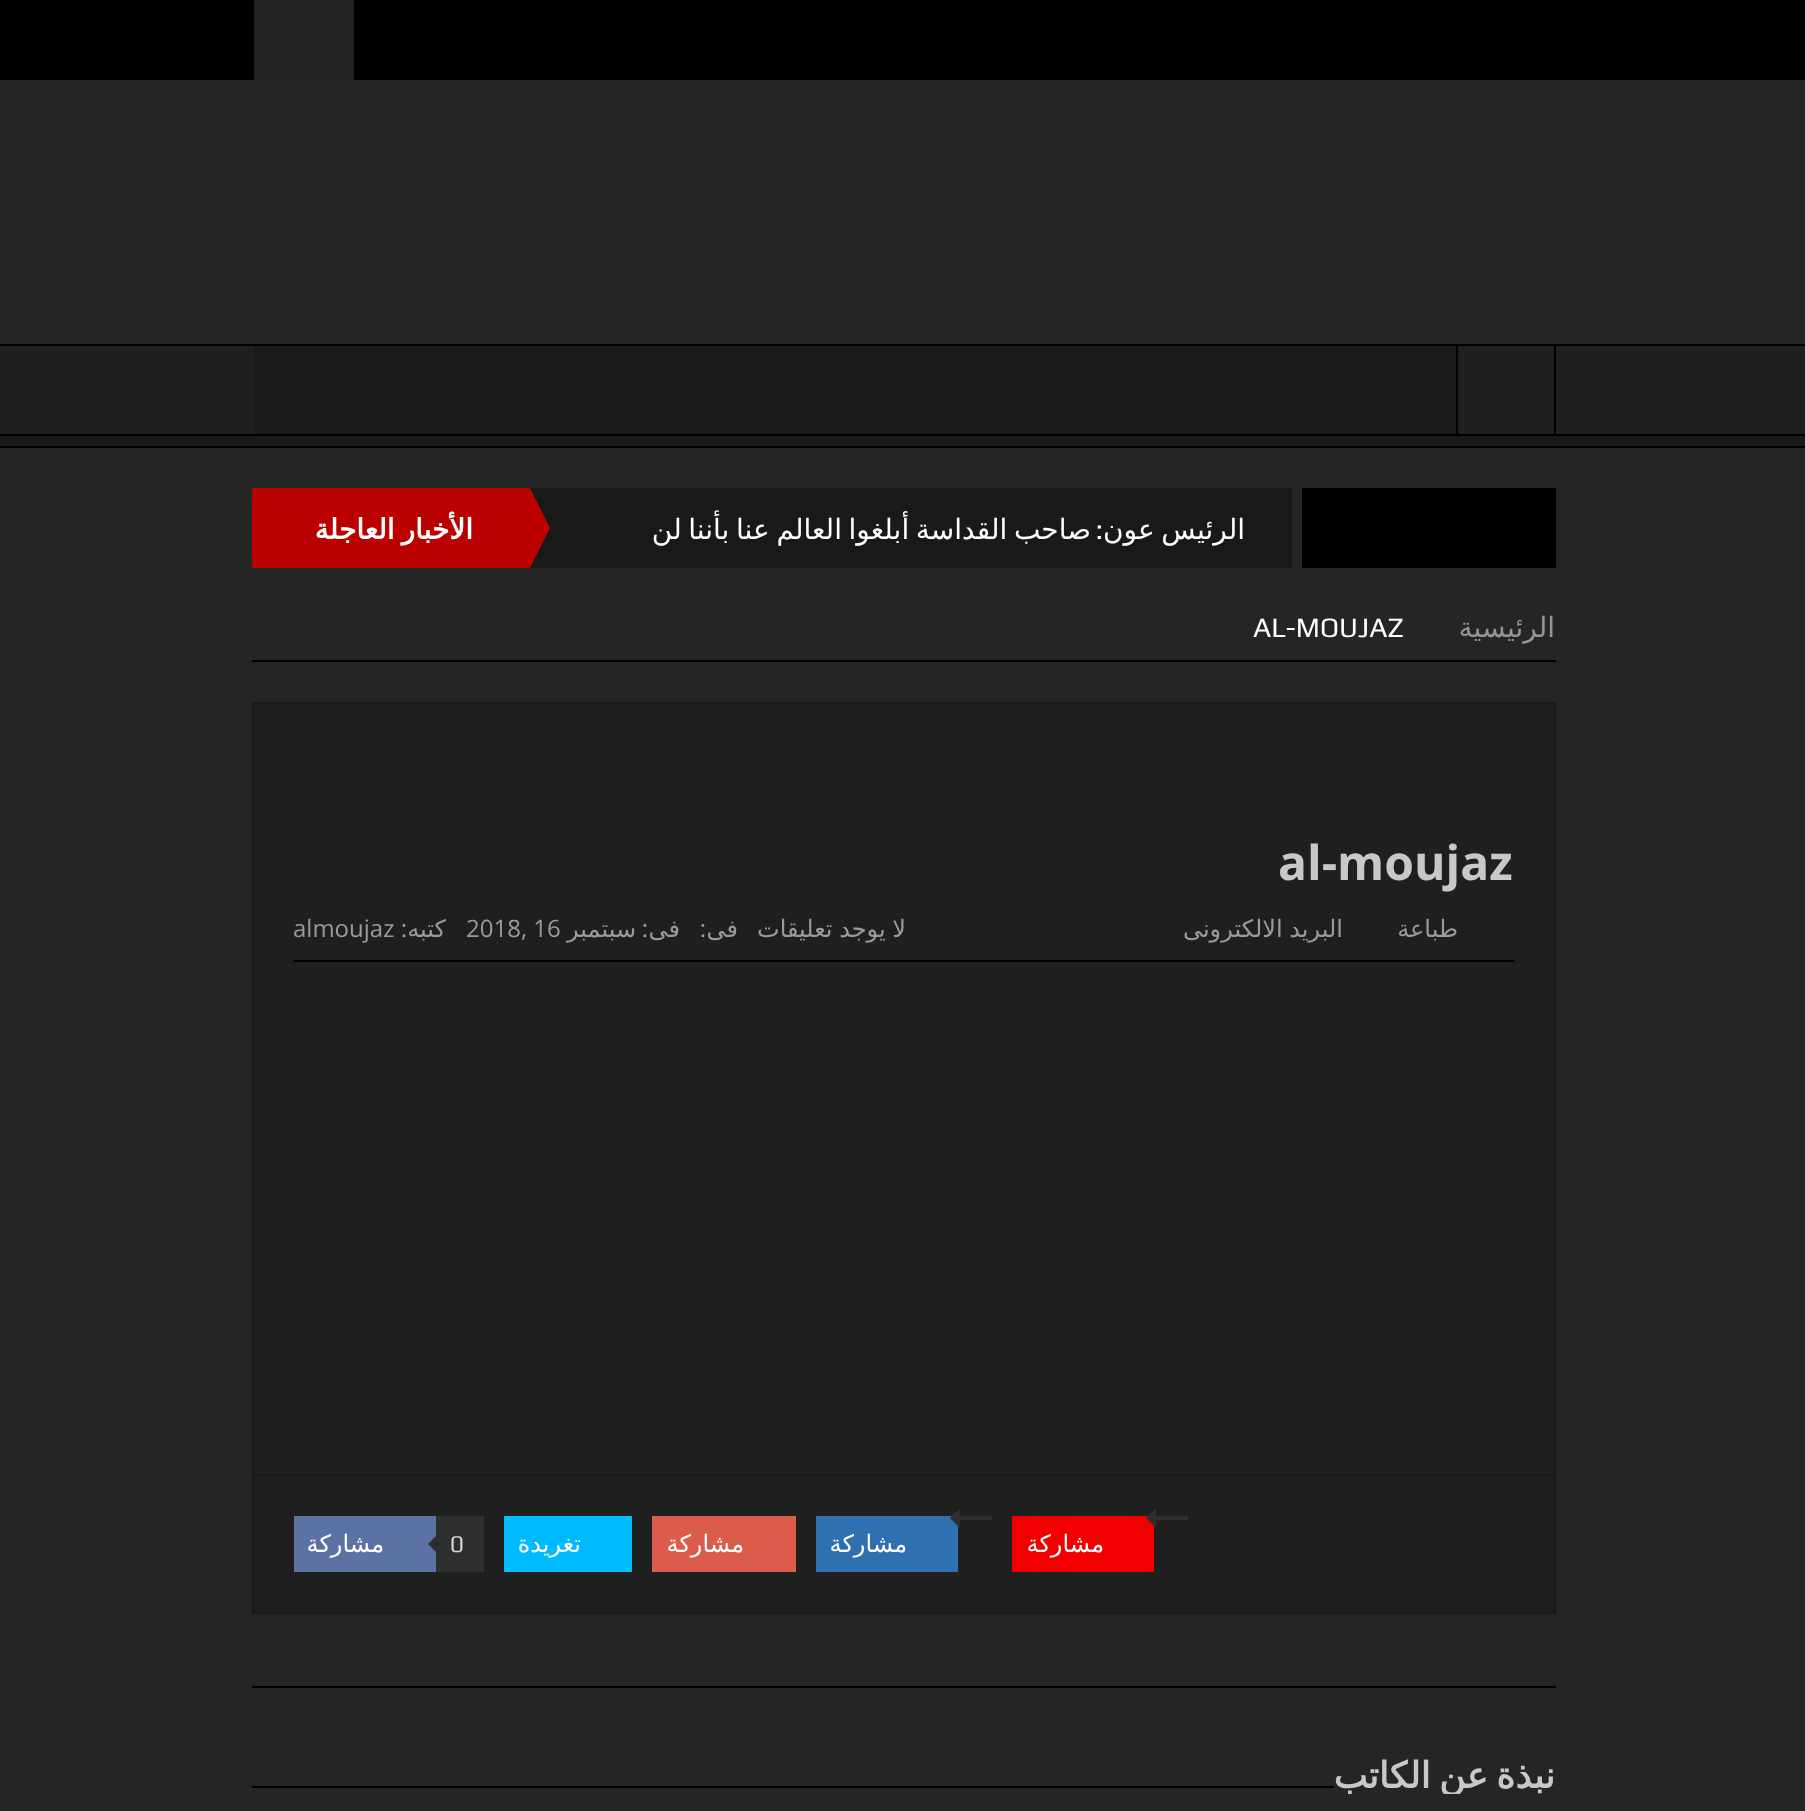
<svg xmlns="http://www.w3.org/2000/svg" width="1805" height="1811">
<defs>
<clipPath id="clip1"><rect x="252" y="1758" width="1304" height="36"/></clipPath>
</defs>
<rect width="100%" height="100%" fill="#242525"/>
<rect width="1805" height="80" fill="#000"/>
<rect x="254" width="100" height="80" fill="#232323"/>
<rect y="436" width="1805" height="10" fill="#191919"/>
<rect y="344" width="1805" height="2" fill="#000"/>
<rect y="446" width="1805" height="2" fill="#000"/>
<rect y="346" width="1805" height="88" fill="#1f1f1f"/>
<rect y="434" width="1805" height="2" fill="#000"/>
<rect x="1554" y="346" width="2" height="88" fill="#000"/>
<rect x="1456" y="346" width="2" height="88" fill="#000"/>
<rect x="254" y="346" width="1202" height="88" fill="#191919"/>
<rect x="1302" y="488" width="254" height="80" fill="#000"/>
<rect x="530" y="488" width="762" height="80" fill="#191919"/>
<text x="1245" y="539" word-spacing="-2.25" style="font-family:DejaVu Sans;font-size:28px;direction:rtl;fill:#fff">الرئيس عون</text>
<text x="1103" y="539" style="font-family:Play;font-size:28px;direction:rtl;fill:#fff">:</text>
<text x="1091" y="539" word-spacing="-2.25" style="font-family:DejaVu Sans;font-size:28px;direction:rtl;fill:#fff">صاحب القداسة أبلغوا العالم عنا بأننا لن</text>
<rect x="252" y="488" width="278" height="80" fill="#b00"/>
<path d="M530 568v-80l20 40z" fill="#b00"/>
<text x="473" y="539" word-spacing="-2" style="font-family:DejaVu Sans;font-size:28px;font-weight:bold;direction:rtl;fill:#fff">الأخبار العاجلة</text>
<rect x="252" y="660" width="1304" height="2" fill="#000"/>
<text x="1555" y="637" style="font-family:DejaVu Sans;font-size:28px;direction:rtl;fill:#959595">الرئيسية</text>
<text x="1253" y="637" style="font-family:Play;font-size:28px;fill:#fff">AL-MOUJAZ</text>
<rect x="253" y="703" width="1302" height="910" fill="#1f1f1f" stroke="#191919" stroke-width="2"/>
<text x="1278" y="880" style="font-family:Open Sans;font-size:48px;font-weight:bold;fill:#c8c8c8">al-moujaz</text>
<rect x="294" y="960" width="1220" height="2" fill="#000"/>
<text x="1458" y="937" style="font-family:DejaVu Sans;font-size:24px;direction:rtl;fill:#9b9b9b">طباعة</text>
<text x="1343" y="937" word-spacing="-1" style="font-family:DejaVu Sans;font-size:24px;direction:rtl;fill:#9b9b9b">البريد الالكترونى</text>
<text x="906" y="937" word-spacing="-1" style="font-family:DejaVu Sans;font-size:24px;direction:rtl;fill:#9b9b9b">لا يوجد تعليقات</text>
<text x="738" y="937" style="font-family:DejaVu Sans;font-size:24px;direction:rtl;fill:#9b9b9b">فى</text>
<text x="706" y="937" style="font-family:Open Sans;font-size:24px;direction:rtl;fill:#9b9b9b">:</text>
<text x="680" y="937" style="font-family:DejaVu Sans;font-size:24px;direction:rtl;fill:#9b9b9b">فى</text>
<text x="648" y="937" style="font-family:Open Sans;font-size:24px;direction:rtl;fill:#9b9b9b">:</text>
<text x="636" y="937" style="font-family:DejaVu Sans;font-size:24px;direction:rtl;fill:#9b9b9b">سبتمبر</text>
<text x="466" y="937" style="font-family:Open Sans;font-size:24px;fill:#9b9b9b">2018, 16</text>
<text x="446" y="937" style="font-family:DejaVu Sans;font-size:24px;direction:rtl;fill:#9b9b9b">كتبه</text>
<text x="407" y="937" style="font-family:Open Sans;font-size:24px;direction:rtl;fill:#9b9b9b">:</text>
<text x="293" y="937" style="font-family:Open Sans;font-size:24px;fill:#9b9b9b">almoujaz</text>
<rect x="254" y="1474" width="1300" height="2" fill="#191919"/>
<rect x="1154" y="1516" width="34" height="4" fill="#2d2f2f"/>
<rect x="1012" y="1516" width="142" height="56" fill="#f20000"/>
<path d="M1156 1508v20l-10-10z" fill="#2d2f2f"/>
<text x="1104" y="1552" style="font-family:DejaVu Sans;font-size:24px;direction:rtl;fill:#fff">مشاركة</text>
<rect x="958" y="1516" width="34" height="4" fill="#2d2f2f"/>
<rect x="816" y="1516" width="142" height="56" fill="#2f70b0"/>
<path d="M960 1508v20l-10-10z" fill="#2d2f2f"/>
<text x="907" y="1552" style="font-family:DejaVu Sans;font-size:24px;direction:rtl;fill:#fff">مشاركة</text>
<rect x="652" y="1516" width="144" height="56" fill="#db5c4b"/>
<text x="744" y="1552" style="font-family:DejaVu Sans;font-size:24px;direction:rtl;fill:#fff">مشاركة</text>
<rect x="504" y="1516" width="128" height="56" fill="#00baff"/>
<text x="581" y="1552" style="font-family:DejaVu Sans;font-size:24px;direction:rtl;fill:#fff">تغريدة</text>
<rect x="436" y="1516" width="48" height="56" fill="#2d2f2f"/>
<text x="450" y="1552" style="font-family:Play;font-size:24px;fill:#d6d6d6">0</text>
<rect x="294" y="1516" width="142" height="56" fill="#5d72a4"/>
<path d="M438 1534v20l-10-10z" fill="#2d2f2f"/>
<text x="384" y="1552" style="font-family:DejaVu Sans;font-size:24px;direction:rtl;fill:#fff">مشاركة</text>
<rect x="252" y="1686" width="1304" height="2" fill="#000"/>
<g clip-path="url(#clip1)">
<text x="1555" y="1788" word-spacing="-3" style="font-family:DejaVu Sans;font-size:36px;font-weight:bold;direction:rtl;fill:#c8c8c8">نبذة عن الكاتب</text>
</g>
<rect x="252" y="1786" width="1082" height="2" fill="#000"/>
</svg>
